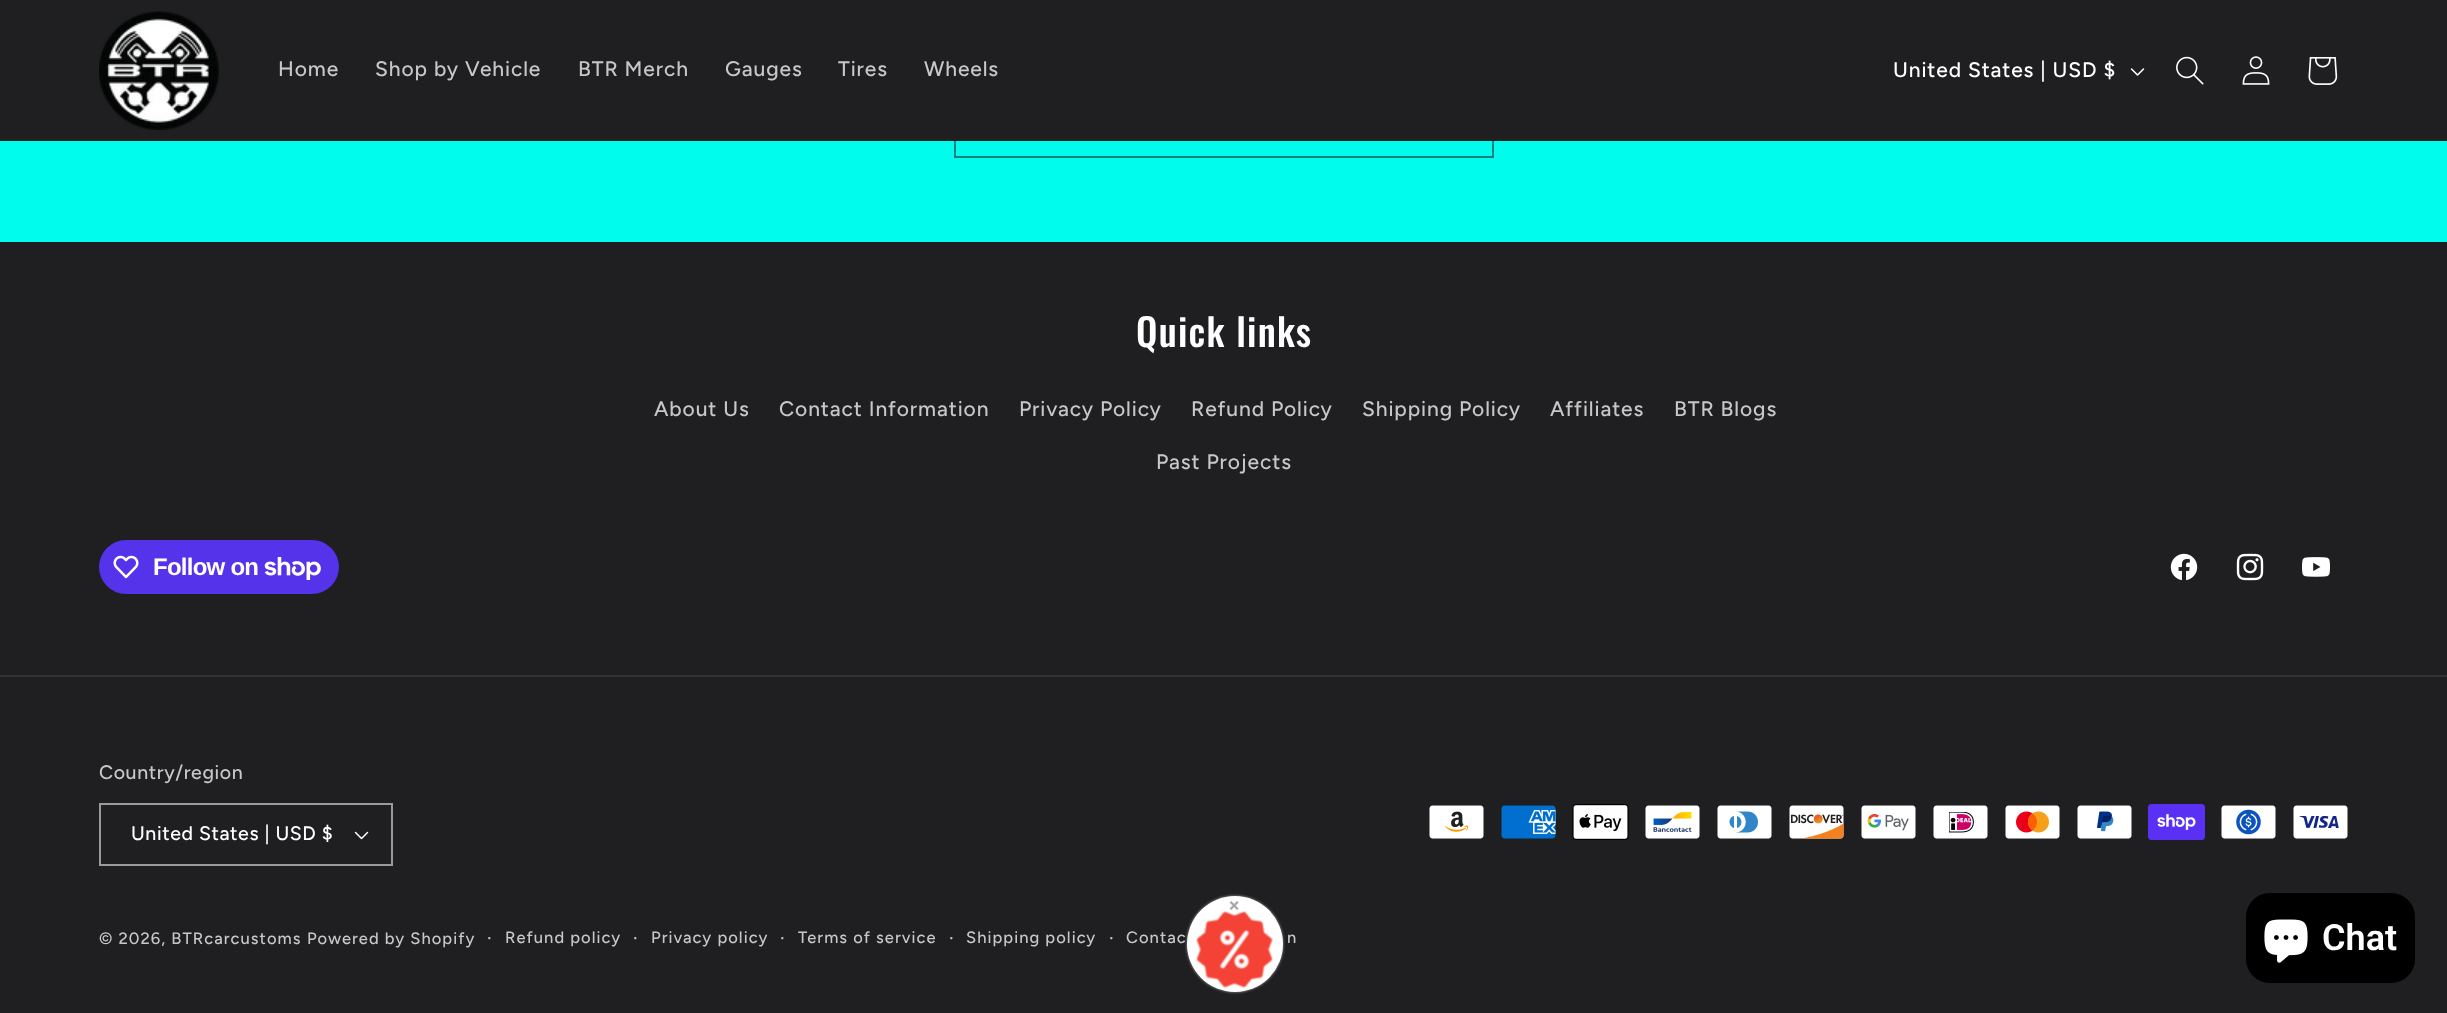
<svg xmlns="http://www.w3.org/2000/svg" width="2447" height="1013">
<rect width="100%" height="100%" fill="#1f1f21"/>
<rect y="141" width="2447" height="101" fill="#00fced"/>
<rect x="955" y="88" width="538" height="69" fill="none" stroke="#11827d" stroke-width="2"/>
<rect x="954" y="87" width="540" height="54" fill="#1f1f21"/>
<image x="99" y="11" width="120" height="119" href="media/1.png"/>
<text x="278" y="76" style="font-family:Figtree;font-size:21px;font-weight:500;letter-spacing:0.9px;fill:#c7c7c8">Home</text>
<text x="375" y="76" style="font-family:Figtree;font-size:21px;font-weight:500;letter-spacing:0.9px;fill:#c7c7c8">Shop by Vehicle</text>
<text x="578" y="76" style="font-family:Figtree;font-size:21px;font-weight:500;letter-spacing:0.9px;fill:#c7c7c8">BTR Merch</text>
<text x="725" y="76" style="font-family:Figtree;font-size:21px;font-weight:500;letter-spacing:0.9px;fill:#c7c7c8">Gauges</text>
<text x="838" y="76" style="font-family:Figtree;font-size:21px;font-weight:500;letter-spacing:0.9px;fill:#c7c7c8">Tires</text>
<text x="924" y="76" style="font-family:Figtree;font-size:21px;font-weight:500;letter-spacing:0.9px;fill:#c7c7c8">Wheels</text>
<text x="1893" y="77" style="font-family:Figtree;font-size:21px;font-weight:500;letter-spacing:0.9px;fill:#fff">United States | USD $</text>
<image x="2130" y="68" width="15" height="8" href="media/2.png"/>
<image x="2176" y="56" width="28" height="29" href="media/3.png"/>
<image x="2242" y="56" width="28" height="29" href="media/4.png"/>
<image x="2308" y="57" width="30" height="28" href="media/5.png"/>
<text x="1136" y="347" style="font-family:Oswald;font-size:38px;font-weight:500;letter-spacing:1.25px;fill:#fff">Quick links</text>
<text x="654" y="416" style="font-family:Figtree;font-size:21px;font-weight:500;letter-spacing:0.9px;fill:#c7c7c8">About Us</text>
<text x="779" y="416" style="font-family:Figtree;font-size:21px;font-weight:500;letter-spacing:0.9px;fill:#c7c7c8">Contact Information</text>
<text x="1019" y="416" style="font-family:Figtree;font-size:21px;font-weight:500;letter-spacing:0.9px;fill:#c7c7c8">Privacy Policy</text>
<text x="1191" y="416" style="font-family:Figtree;font-size:21px;font-weight:500;letter-spacing:0.9px;fill:#c7c7c8">Refund Policy</text>
<text x="1362" y="416" style="font-family:Figtree;font-size:21px;font-weight:500;letter-spacing:0.9px;fill:#c7c7c8">Shipping Policy</text>
<text x="1550" y="416" style="font-family:Figtree;font-size:21px;font-weight:500;letter-spacing:0.9px;fill:#c7c7c8">Affiliates</text>
<text x="1674" y="416" style="font-family:Figtree;font-size:21px;font-weight:500;letter-spacing:0.9px;fill:#c7c7c8">BTR Blogs</text>
<text x="1156" y="469" style="font-family:Figtree;font-size:21px;font-weight:500;letter-spacing:0.9px;fill:#c7c7c8">Past Projects</text>
<rect x="99" y="540" width="240" height="54" rx="27" fill="#5433eb"/>
<image x="113" y="555" width="26" height="24" href="media/6.png"/>
<text x="153" y="575" style="font-family:Liberation Sans;font-size:24px;font-weight:bold;letter-spacing:-0.75px;fill:#fff">Follow on</text>
<image x="264" y="557" width="57" height="23" href="media/7.png"/>
<image x="2170" y="553" width="28" height="28" href="media/8.png"/>
<image x="2236" y="553" width="28" height="28" href="media/9.png"/>
<image x="2302" y="557" width="28" height="20" href="media/10.png"/>
<rect y="675" width="2447" height="2" fill="#313133"/>
<text x="99" y="779" style="font-family:Figtree;font-size:19.5px;font-weight:500;letter-spacing:0.6px;fill:#c7c7c8">Country/region</text>
<image x="354" y="831" width="15" height="9" href="media/11.png"/>
<rect x="100" y="804" width="292" height="61" fill="none" stroke="#9a9a9b" stroke-width="2"/>
<text x="131" y="840" style="font-family:Figtree;font-size:19.5px;font-weight:500;letter-spacing:0.6px;fill:#fff">United States | USD $</text>
<image x="1429" y="805" width="55" height="34" href="media/12.png"/>
<image x="1501" y="805" width="55" height="34" href="media/13.png"/>
<image x="1572" y="804" width="57" height="36" href="media/14.png"/>
<image x="1645" y="805" width="55" height="34" href="media/15.png"/>
<image x="1717" y="805" width="55" height="34" href="media/16.png"/>
<image x="1789" y="805" width="55" height="34" href="media/17.png"/>
<image x="1861" y="805" width="55" height="34" href="media/18.png"/>
<image x="1933" y="805" width="55" height="34" href="media/19.png"/>
<image x="2005" y="805" width="55" height="34" href="media/20.png"/>
<image x="2077" y="805" width="55" height="34" href="media/21.png"/>
<image x="2148" y="804" width="57" height="36" href="media/22.png"/>
<image x="2221" y="805" width="55" height="34" href="media/23.png"/>
<image x="2293" y="805" width="55" height="34" href="media/24.png"/>
<text x="99" y="944" style="font-family:Figtree;font-size:16.5px;font-weight:500;letter-spacing:1.05px;fill:#c7c7c8">© 2026, BTRcarcustoms</text>
<text x="307" y="944" style="font-family:Figtree;font-size:16.5px;font-weight:500;letter-spacing:1.05px;fill:#c7c7c8">Powered by Shopify</text>
<text x="487" y="944" style="font-family:Figtree;font-size:18px;font-weight:500;letter-spacing:1.05px;fill:#c7c7c8">·</text>
<text x="505" y="943" style="font-family:Figtree;font-size:16.5px;font-weight:500;letter-spacing:1.05px;fill:#c7c7c8">Refund policy</text>
<text x="633" y="944" style="font-family:Figtree;font-size:18px;font-weight:500;letter-spacing:1.05px;fill:#c7c7c8">·</text>
<text x="651" y="943" style="font-family:Figtree;font-size:16.5px;font-weight:500;letter-spacing:1.05px;fill:#c7c7c8">Privacy policy</text>
<text x="780" y="944" style="font-family:Figtree;font-size:18px;font-weight:500;letter-spacing:1.05px;fill:#c7c7c8">·</text>
<text x="798" y="943" style="font-family:Figtree;font-size:16.5px;font-weight:500;letter-spacing:1.05px;fill:#c7c7c8">Terms of service</text>
<text x="949" y="944" style="font-family:Figtree;font-size:18px;font-weight:500;letter-spacing:1.05px;fill:#c7c7c8">·</text>
<text x="966" y="943" style="font-family:Figtree;font-size:16.5px;font-weight:500;letter-spacing:1.05px;fill:#c7c7c8">Shipping policy</text>
<text x="1109" y="944" style="font-family:Figtree;font-size:18px;font-weight:500;letter-spacing:1.05px;fill:#c7c7c8">·</text>
<text x="1126" y="943" style="font-family:Figtree;font-size:16.5px;font-weight:500;letter-spacing:1.05px;fill:#c7c7c8">Contac</text>
<text x="1287" y="943" style="font-family:Figtree;font-size:16.5px;font-weight:500;letter-spacing:1.05px;fill:#c7c7c8">n</text>
<rect x="1187" y="896" width="96" height="96" rx="48" fill="#9d9d9d" filter="blur(1.5px)"/>
<circle cx="1235" cy="944" r="48" fill="#fff"/>
<image x="1196" y="911" width="77" height="77" href="media/25.png"/>
<text x="1229" y="912" style="font-family:Roboto;font-size:19.5px;font-weight:bold;letter-spacing:0.9px;fill:#a8a8a8">×</text>
<rect x="2246" y="893" width="169" height="90" rx="24" fill="#000"/>
<image x="2264" y="919" width="44" height="44" href="media/26.png"/>
<text x="2322" y="950" style="font-family:Roboto;font-size:36px;font-weight:600;fill:#fff">Chat</text>
</svg>
